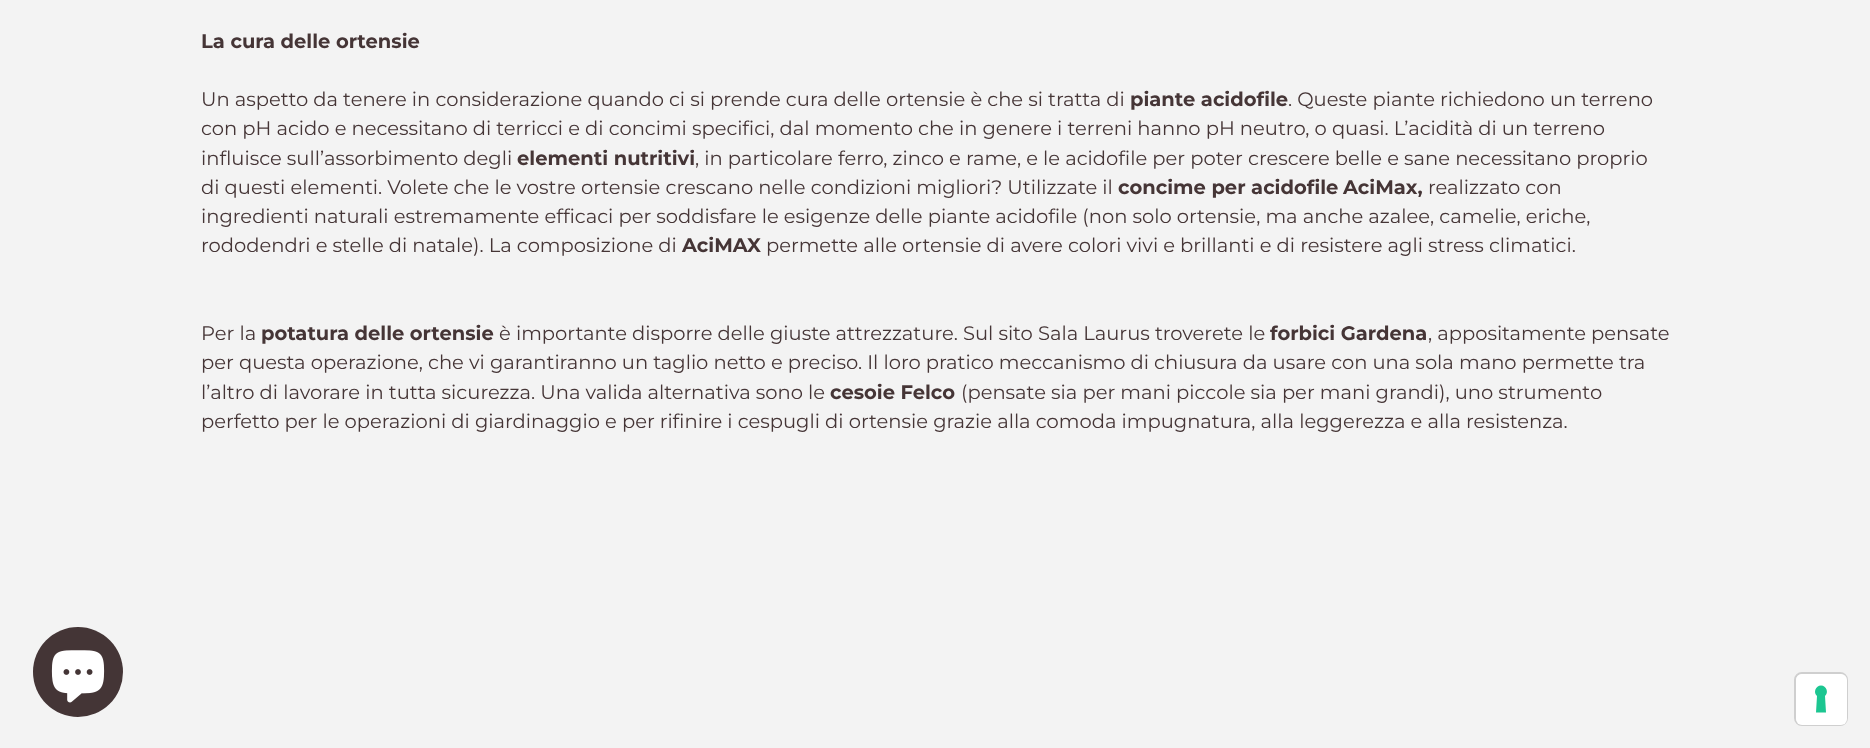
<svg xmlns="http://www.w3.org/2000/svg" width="1870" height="748">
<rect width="100%" height="100%" fill="#f3f3f3"/>
<text x="201" y="48" style="font-family:Montserrat;font-size:19.5px;font-weight:bold;fill:#453536">La cura delle ortensie</text>
<text x="201" y="106" style="font-family:Montserrat;font-size:19.5px;fill:#453536">Un aspetto da tenere in considerazione quando ci si prende cura delle ortensie è che si tratta di</text>
<text x="1130" y="106" style="font-family:Montserrat;font-size:19.5px;font-weight:bold;fill:#453536">piante acidofile</text>
<text x="1288" y="106" style="font-family:Montserrat;font-size:19.5px;fill:#453536">. Queste piante richiedono un terreno</text>
<text x="201" y="135" style="font-family:Montserrat;font-size:19.5px;fill:#453536">con pH acido e necessitano di terricci e di concimi specifici, dal momento che in genere i terreni hanno pH neutro, o quasi. L’acidità di un terreno</text>
<text x="201" y="165" style="font-family:Montserrat;font-size:19.5px;fill:#453536">influisce sull’assorbimento degli</text>
<text x="517" y="165" style="font-family:Montserrat;font-size:19.5px;font-weight:bold;fill:#453536">elementi nutritivi</text>
<text x="695" y="165" style="font-family:Montserrat;font-size:19.5px;fill:#453536">, in particolare ferro, zinco e rame, e le acidofile per poter crescere belle e sane necessitano proprio</text>
<text x="201" y="194" style="font-family:Montserrat;font-size:19.5px;fill:#453536">di questi elementi. Volete che le vostre ortensie crescano nelle condizioni migliori? Utilizzate il</text>
<text x="1118" y="194" style="font-family:Montserrat;font-size:19.5px;font-weight:bold;fill:#453536">concime per acidofile</text>
<text x="1343" y="194" style="font-family:Montserrat;font-size:19.5px;font-weight:bold;fill:#453536">AciMax,</text>
<text x="1428" y="194" style="font-family:Montserrat;font-size:19.5px;fill:#453536">realizzato con</text>
<text x="201" y="223" style="font-family:Montserrat;font-size:19.5px;fill:#453536">ingredienti naturali estremamente efficaci per soddisfare le esigenze delle piante acidofile (non solo ortensie, ma anche azalee, camelie, eriche,</text>
<text x="201" y="252" style="font-family:Montserrat;font-size:19.5px;fill:#453536">rododendri e stelle di natale). La composizione di</text>
<text x="682" y="252" style="font-family:Montserrat;font-size:19.5px;font-weight:bold;fill:#453536">AciMAX</text>
<text x="766" y="252" style="font-family:Montserrat;font-size:19.5px;fill:#453536">permette alle ortensie di avere colori vivi e brillanti e di resistere agli stress climatici.</text>
<text x="201" y="340" style="font-family:Montserrat;font-size:19.5px;fill:#453536">Per la</text>
<text x="261" y="340" style="font-family:Montserrat;font-size:19.5px;font-weight:bold;fill:#453536">potatura delle ortensie</text>
<text x="499" y="340" style="font-family:Montserrat;font-size:19.5px;fill:#453536">è importante disporre delle giuste attrezzature. Sul sito Sala Laurus troverete le</text>
<text x="1270" y="340" style="font-family:Montserrat;font-size:19.5px;font-weight:bold;fill:#453536">forbici Gardena</text>
<text x="1428" y="340" style="font-family:Montserrat;font-size:19.5px;fill:#453536">, appositamente pensate</text>
<text x="201" y="369" style="font-family:Montserrat;font-size:19.5px;fill:#453536">per questa operazione, che vi garantiranno un taglio netto e preciso. Il loro pratico meccanismo di chiusura da usare con una sola mano permette tra</text>
<text x="201" y="399" style="font-family:Montserrat;font-size:19.5px;fill:#453536">l’altro di lavorare in tutta sicurezza. Una valida alternativa sono le</text>
<text x="830" y="399" style="font-family:Montserrat;font-size:19.5px;font-weight:bold;fill:#453536">cesoie Felco</text>
<text x="961" y="399" style="font-family:Montserrat;font-size:19.5px;fill:#453536">(pensate sia per mani piccole sia per mani grandi), uno strumento</text>
<text x="201" y="428" style="font-family:Montserrat;font-size:19.5px;fill:#453536">perfetto per le operazioni di giardinaggio e per rifinire i cespugli di ortensie grazie alla comoda impugnatura, alla leggerezza e alla resistenza.</text>
<circle cx="78" cy="672" r="45" fill="#443536"/>
<image x="51" y="650" width="54" height="53" href="media/1.png"/>
<rect x="1795" y="673" width="52" height="52" rx="7" fill="none" stroke="#cfcfcf" stroke-width="2"/>
<rect x="1796" y="674" width="51" height="51" rx="6" fill="#fff"/>
<path d="M1821 685.5c5.5 0 8 7 4 10.5l1 16.5h-10l1-16.5c-4-3.5-1.5-10.5 4-10.5z" fill="#1cc691" fill-rule="evenodd"/>
</svg>
